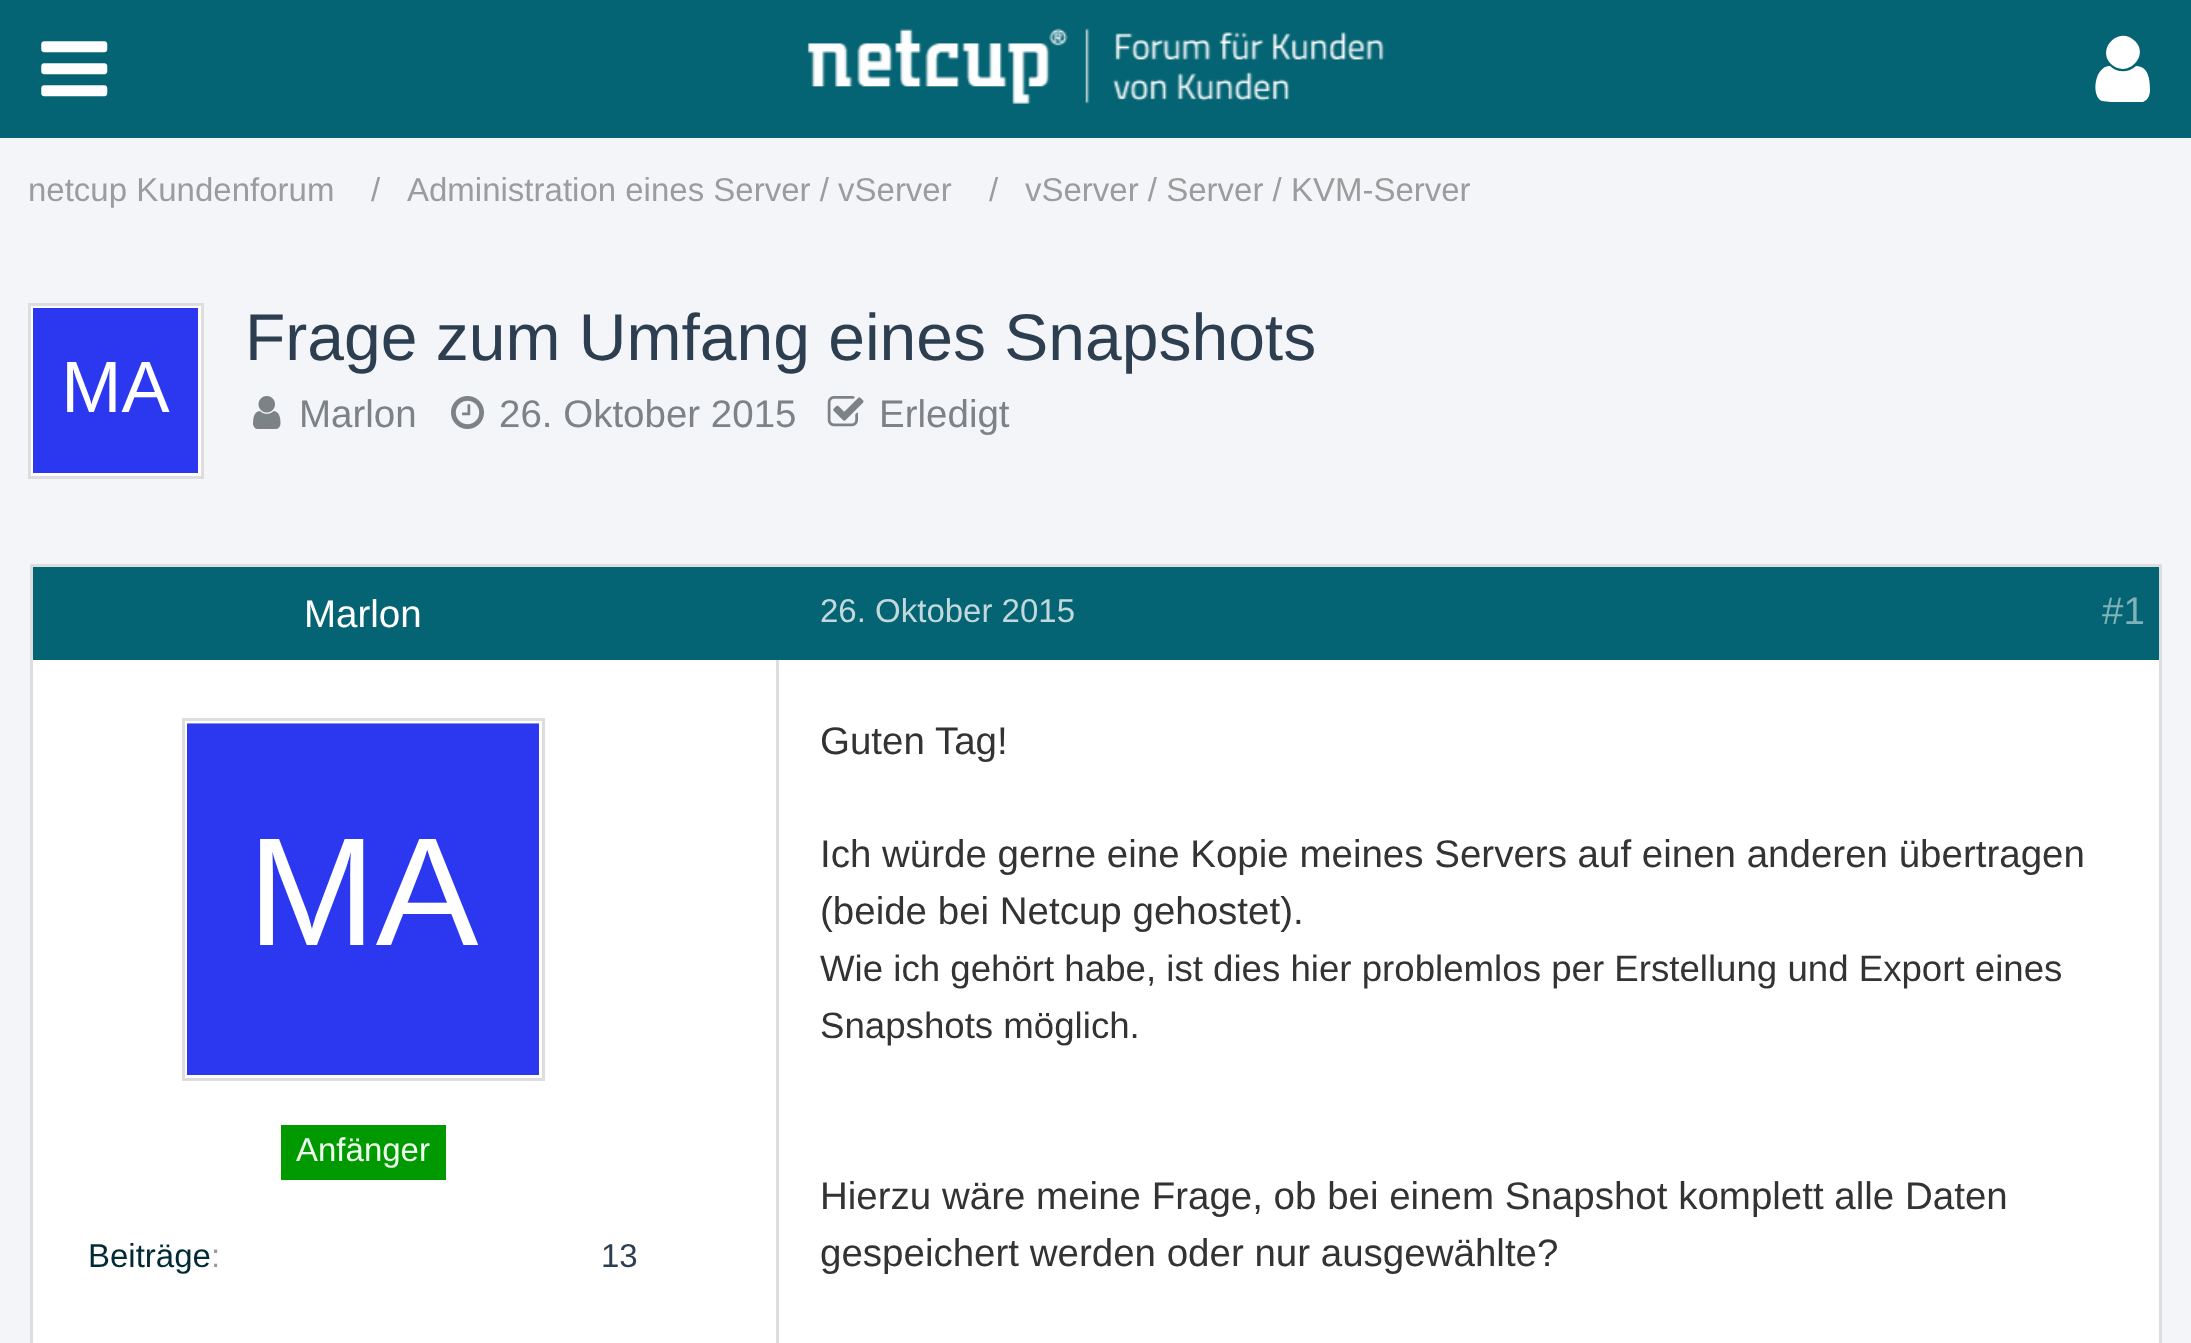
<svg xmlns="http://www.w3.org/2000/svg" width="2191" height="1343">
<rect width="100%" height="100%" fill="#f3f5f8"/>
<rect width="2191" height="138" fill="#056473"/>
<image x="41" y="41" width="67" height="56" href="media/1.png"/>
<path d="M2150 90c0 5-2 10-7 12h-32l-9-1c-11-4-8-35 8-35c7 7 19 7 26 0c13 0 14 15 14 24zm-15-49c15 15-8 38-24 23c-15-15 8-39 24-23z" fill="#fff"/>
<image x="807" y="28" width="578" height="76" href="media/2.png"/>
<text x="28" y="201" style="font-family:Liberation Sans;font-size:33px;fill:#9c9c9c">netcup Kundenforum</text>
<text x="371" y="201" style="font-family:Liberation Sans;font-size:33px;fill:#9c9c9c">/</text>
<text x="407" y="201" style="font-family:Liberation Sans;font-size:33px;fill:#9c9c9c">Administration eines Server / vServer</text>
<text x="989" y="201" style="font-family:Liberation Sans;font-size:33px;fill:#9c9c9c">/</text>
<text x="1025" y="201" style="font-family:Liberation Sans;font-size:33px;fill:#9c9c9c">vServer / Server / KVM-Server</text>
<rect x="29.5" y="304.5" width="173" height="173" fill="#fff" stroke="#ddd" stroke-width="3"/>
<image x="33" y="308" width="165" height="165" href="media/3.png"/>
<text x="245" y="360" style="font-family:Liberation Sans;font-size:66px;fill:#2c3e50">Frage zum Umfang eines Snapshots</text>
<image x="253" y="396" width="28" height="33" href="media/4.png"/>
<text x="299" y="427" style="font-family:Liberation Sans;font-size:38.5px;fill:#7d8287">Marlon</text>
<image x="451" y="396" width="33" height="33" href="media/5.png"/>
<text x="499" y="427" style="font-family:Liberation Sans;font-size:38.5px;fill:#7d8287">26. Oktober 2015</text>
<image x="827" y="396" width="37" height="31" href="media/6.png"/>
<text x="879" y="427" style="font-family:Liberation Sans;font-size:38.5px;fill:#7d8287">Erledigt</text>
<rect x="33" y="660" width="2126" height="683" fill="#fff"/>
<rect x="33" y="567" width="2126" height="93" fill="#056473"/>
<rect x="31.5" y="565.5" width="2129" height="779" fill="none" stroke="#ddd" stroke-width="3"/>
<text x="304" y="627" style="font-family:Liberation Sans;font-size:38.5px;fill:#fff">Marlon</text>
<rect x="183.5" y="719.5" width="360" height="360" fill="none" stroke="#ddd" stroke-width="3"/>
<image x="187" y="723" width="352" height="352" href="media/7.png"/>
<rect x="281" y="1125" width="165" height="55" fill="#090"/>
<text x="296" y="1161" style="font-family:Liberation Sans;font-size:33px;fill:#efe">Anfänger</text>
<text x="88" y="1267" style="font-family:Liberation Sans;font-size:33px;fill:#002a34">Beiträge</text>
<text x="211" y="1267" style="font-family:Liberation Sans;font-size:33px;fill:#9c9c9c">:</text>
<text x="601" y="1267" style="font-family:Liberation Sans;font-size:33px;fill:#2c3e50">13</text>
<rect x="776" y="660" width="3" height="683" fill="#ddd"/>
<text x="820" y="622" style="font-family:Liberation Sans;font-size:33px;fill:#c1d8dc">26. Oktober 2015</text>
<text x="2102" y="624" style="font-family:Liberation Sans;font-size:38.5px;fill:#82b2b9">#1</text>
<text x="820" y="754" style="font-family:Liberation Sans;font-size:38.5px;fill:#333">Guten Tag!</text>
<text x="820" y="867" style="font-family:Liberation Sans;font-size:38.5px;fill:#333">Ich würde gerne eine Kopie meines Servers auf einen anderen übertragen</text>
<text x="820" y="924" style="font-family:Liberation Sans;font-size:38.5px;fill:#333">(beide bei Netcup gehostet).</text>
<text x="820" y="981" style="font-family:Liberation Sans;font-size:36.65px;fill:#333">Wie ich gehört habe, ist dies hier problemlos per Erstellung und Export eines</text>
<text x="820" y="1038" style="font-family:Liberation Sans;font-size:36.65px;fill:#333">Snapshots möglich.</text>
<text x="820" y="1209" style="font-family:Liberation Sans;font-size:38.5px;fill:#333">Hierzu wäre meine Frage, ob bei einem Snapshot komplett alle Daten</text>
<text x="820" y="1266" style="font-family:Liberation Sans;font-size:38.5px;fill:#333">gespeichert werden oder nur ausgewählte?</text>
</svg>
